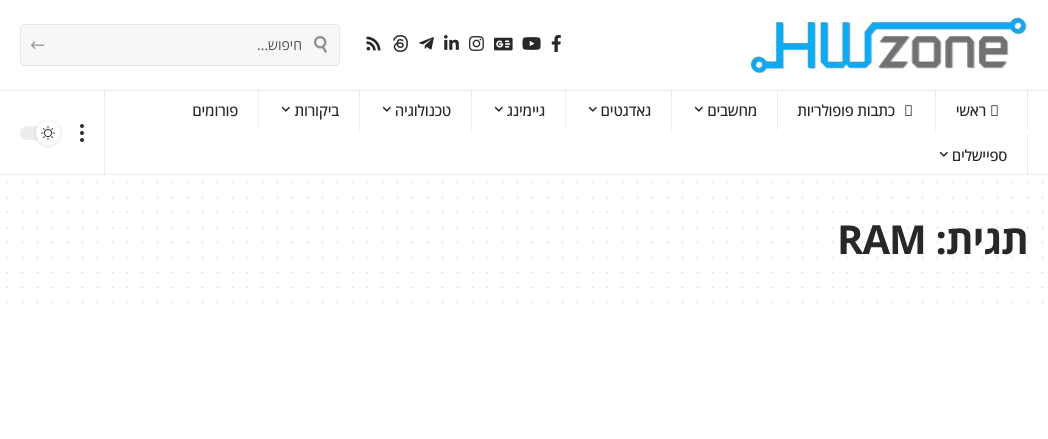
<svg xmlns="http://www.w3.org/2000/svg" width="1048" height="439">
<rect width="100%" height="100%" fill="#fff"/>
<rect y="174" width="1048" height="1" fill="#ededed"/>
<rect x="104" y="90" width="1" height="85" fill="#ededed"/>
<rect x="104" y="174" width="1" height="1" fill="#dedede"/>
<rect x="258" y="90" width="1" height="40" fill="#ededed"/>
<rect x="359" y="90" width="1" height="40" fill="#ededed"/>
<rect x="471" y="90" width="1" height="40" fill="#ededed"/>
<rect x="565" y="90" width="1" height="40" fill="#ededed"/>
<rect x="671" y="90" width="1" height="40" fill="#ededed"/>
<rect x="777" y="90" width="1" height="40" fill="#ededed"/>
<rect x="935" y="90" width="1" height="40" fill="#ededed"/>
<rect x="1027" y="90" width="1" height="40" fill="#ededed"/>
<image x="751" y="17" width="276" height="57" href="media/1.png"/>
<image x="551" y="35" width="10" height="17" href="media/2.png"/>
<image x="522" y="37" width="19" height="13" href="media/3.png"/>
<image x="494" y="37" width="19" height="14" href="media/4.png"/>
<image x="469" y="36" width="15" height="15" href="media/5.png"/>
<image x="444" y="35" width="15" height="15" href="media/6.png"/>
<image x="419" y="37" width="15" height="13" href="media/7.png"/>
<image x="393" y="35" width="15" height="17" href="media/8.png"/>
<image x="366" y="36" width="15" height="15" href="media/9.png"/>
<rect x="20" y="24" width="320" height="42" rx="5" fill="#f7f7f7"/>
<rect x="20.5" y="24.5" width="319" height="41" rx="4.5" fill="none" stroke="#88888826"/>
<image x="314" y="36" width="13" height="17" href="media/10.png"/>
<text x="302" y="50" style="font-family:Open Sans;font-size:14px;direction:rtl;fill:#515151">חיפוש...</text>
<image x="31" y="41" width="14" height="8" href="media/11.png"/>
<rect y="90" width="1048" height="1" fill="#ededed"/>
<rect x="104" y="90" width="1" height="1" fill="#dedede"/>
<rect x="258" y="90" width="1" height="1" fill="#dedede"/>
<rect x="359" y="90" width="1" height="1" fill="#dedede"/>
<rect x="471" y="90" width="1" height="1" fill="#dedede"/>
<rect x="565" y="90" width="1" height="1" fill="#dedede"/>
<rect x="671" y="90" width="1" height="1" fill="#dedede"/>
<rect x="777" y="90" width="1" height="1" fill="#dedede"/>
<rect x="935" y="90" width="1" height="1" fill="#dedede"/>
<rect x="1027" y="90" width="1" height="1" fill="#dedede"/>
<image x="991" y="105" width="7" height="11" href="media/12.png"/>
<text x="986" y="116" style="font-family:Open Sans;font-size:15px;font-weight:500;letter-spacing:-0.25px;direction:rtl;fill:#282828">ראשי</text>
<image x="905" y="105" width="7" height="11" href="media/12.png"/>
<text x="895" y="116" style="font-family:Open Sans;font-size:15px;font-weight:500;letter-spacing:-0.25px;direction:rtl;fill:#282828">כתבות פופולריות</text>
<text x="757" y="116" style="font-family:Open Sans;font-size:15px;font-weight:500;letter-spacing:-0.25px;direction:rtl;fill:#282828">מחשבים</text>
<image x="694" y="106" width="9" height="6" href="media/13.png"/>
<text x="651" y="116" style="font-family:Open Sans;font-size:15px;font-weight:500;letter-spacing:-0.25px;direction:rtl;fill:#282828">גאדגטים</text>
<image x="588" y="106" width="9" height="6" href="media/13.png"/>
<text x="545" y="116" style="font-family:Open Sans;font-size:15px;font-weight:500;letter-spacing:-0.25px;direction:rtl;fill:#282828">גיימינג</text>
<image x="494" y="106" width="9" height="6" href="media/13.png"/>
<text x="451" y="116" style="font-family:Open Sans;font-size:15px;font-weight:500;letter-spacing:-0.25px;direction:rtl;fill:#282828">טכנולוגיה</text>
<image x="382" y="106" width="9" height="6" href="media/13.png"/>
<text x="339" y="116" style="font-family:Open Sans;font-size:15px;font-weight:500;letter-spacing:-0.25px;direction:rtl;fill:#282828">ביקורות</text>
<image x="281" y="106" width="9" height="6" href="media/13.png"/>
<text x="238" y="116" style="font-family:Open Sans;font-size:15px;font-weight:500;letter-spacing:-0.25px;direction:rtl;fill:#282828">פורומים</text>
<rect x="1027" y="135" width="1" height="40" fill="#ededed"/>
<rect x="1027" y="174" width="1" height="1" fill="#dedede"/>
<text x="1007" y="161" style="font-family:Open Sans;font-size:15px;font-weight:500;letter-spacing:-0.25px;direction:rtl;fill:#282828">ספיישלים</text>
<image x="939" y="151" width="9" height="6" href="media/13.png"/>
<circle cx="82" cy="126" r="2" fill="#282828"/>
<circle cx="82" cy="133" r="2" fill="#282828"/>
<circle cx="82" cy="140" r="2" fill="#282828"/>
<rect x="20" y="126" width="40" height="14" rx="7" fill="#ededed"/>
<rect x="36" y="122" width="24" height="24" rx="12" fill="#0000001f" filter="blur(2px)"/>
<circle cx="48" cy="133" r="12" fill="#fff"/>
<image x="41" y="126" width="14" height="14" href="media/14.png"/>
<path d="M7.5 182.5h1035.2" fill="none" stroke="#dfdfdf" stroke-width="2" stroke-linecap="round" stroke-dasharray="0 15"/>
<path d="M7.5 197.5h1035.2" fill="none" stroke="#dfdfdf" stroke-width="2" stroke-linecap="round" stroke-dasharray="0 15"/>
<path d="M7.5 212.5h1035.2" fill="none" stroke="#dfdfdf" stroke-width="2" stroke-linecap="round" stroke-dasharray="0 15"/>
<text x="1028" y="254" style="font-family:Open Sans;font-size:40px;font-weight:bold;letter-spacing:-1px;direction:rtl;fill:#282828">תגית:</text>
<text x="837" y="254" style="font-family:Open Sans;font-size:40px;font-weight:bold;letter-spacing:-1px;fill:#282828">RAM</text>
<path d="M7.5 227.5h1035.2" fill="none" stroke="#28282826" stroke-width="2" stroke-linecap="round" stroke-dasharray="0 15"/>
<path d="M7.5 242.5h1035.2" fill="none" stroke="#28282826" stroke-width="2" stroke-linecap="round" stroke-dasharray="0 15"/>
<path d="M7.5 257.5h1035.2" fill="none" stroke="#dfdfdf" stroke-width="2" stroke-linecap="round" stroke-dasharray="0 15"/>
<path d="M7.5 272.5h1035.2" fill="none" stroke="#dfdfdf" stroke-width="2" stroke-linecap="round" stroke-dasharray="0 15"/>
<path d="M7.5 287.5h1035.2" fill="none" stroke="#dfdfdf" stroke-width="2" stroke-linecap="round" stroke-dasharray="0 15"/>
<path d="M7.5 302.5h1035.2" fill="none" stroke="#dfdfdf" stroke-width="2" stroke-linecap="round" stroke-dasharray="0 15"/>
</svg>
